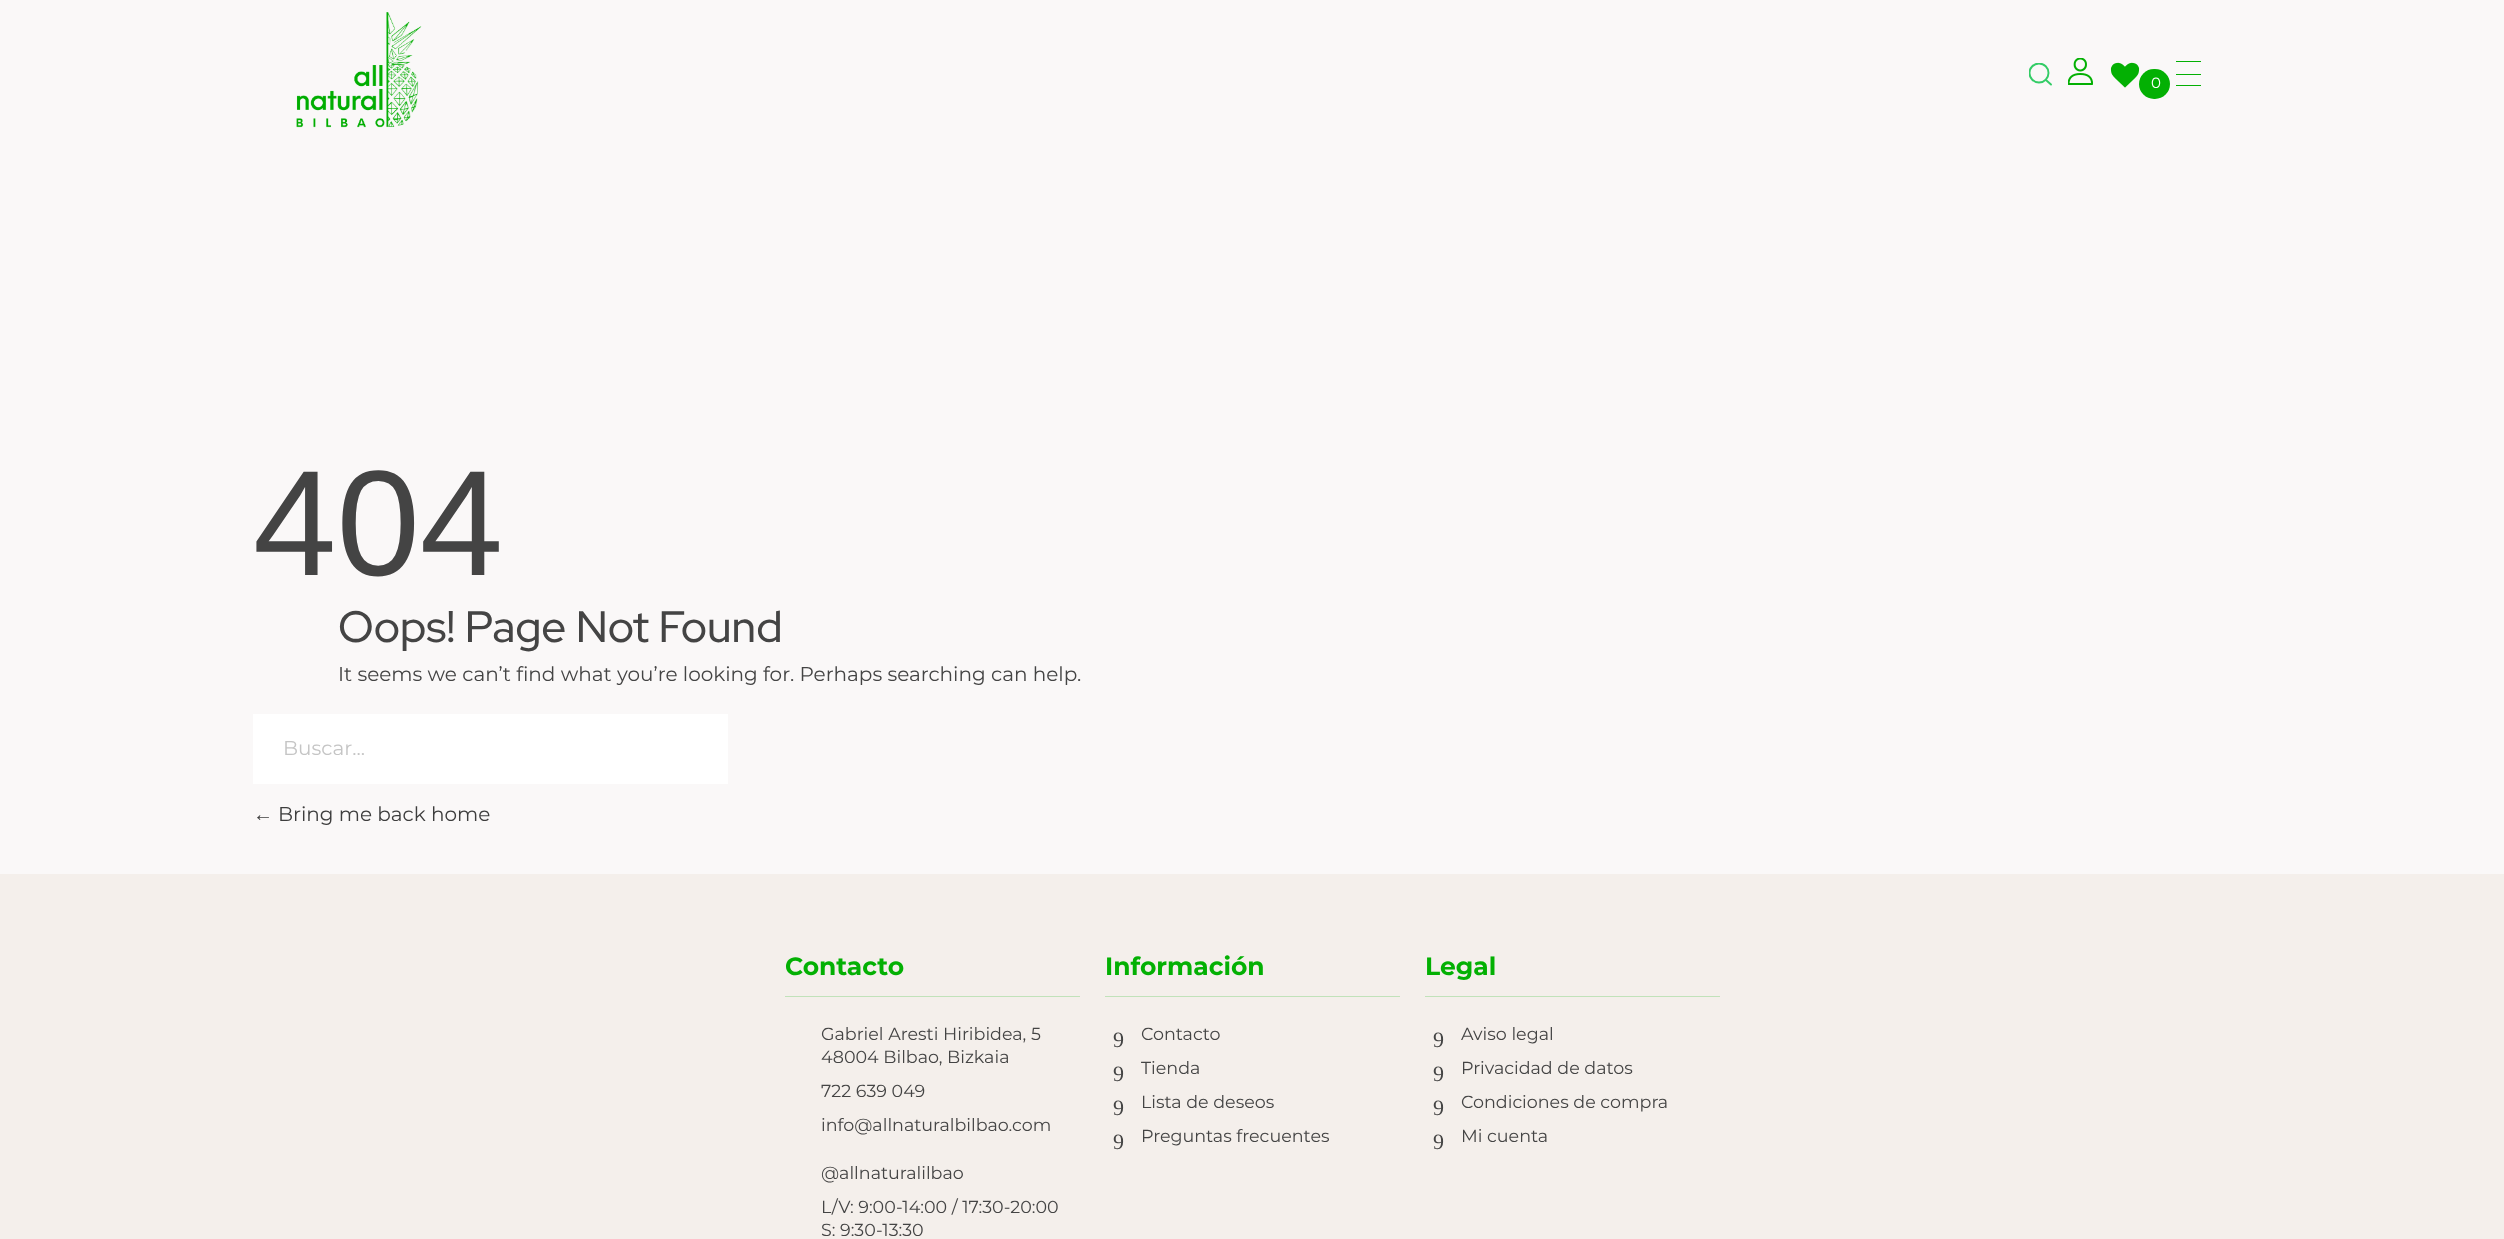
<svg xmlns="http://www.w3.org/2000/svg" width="2504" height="1239">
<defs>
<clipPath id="clip1"><rect x="2029" y="63" width="24" height="22"/></clipPath>
</defs>
<rect width="100%" height="100%" fill="#faf8f8"/>
<image x="296" y="12" width="126" height="116" href="media/1.png"/>
<g clip-path="url(#clip1)">
<circle cx="2039" cy="73" r="9.5" fill="none" stroke="#3c6" stroke-width="1.9"/>
</g>
<path d="M2046.5 80.5l4.5 4" fill="none" stroke="#3c6" stroke-width="1.9" stroke-linecap="round"/>
<image x="2068" y="58" width="25" height="27" href="media/2.png"/>
<image x="2110" y="62" width="30" height="26" href="media/3.png"/>
<rect x="2139" y="69" width="31" height="30" rx="15" fill="#03b003"/>
<text x="2151" y="88" style="font-family:Montserrat;font-size:15px;fill:#fff">0</text>
<rect x="2176" y="61" width="25" height="1" fill="#03b003"/>
<rect x="2176" y="74" width="25" height="1" fill="#03b003"/>
<rect x="2176" y="85" width="25" height="1" fill="#03b003"/>
<text x="253" y="575" style="font-family:Liberation Sans;font-size:150px;fill:#444">404</text>
<text x="338" y="642" style="font-family:Red Hat Display;font-size:44px;font-weight:500;fill:#444">Oops! Page Not Found</text>
<text x="338" y="681" style="font-family:Montserrat;font-size:20px;fill:#444">It seems we can’t find what you’re looking for. Perhaps searching can help.</text>
<rect x="253" y="714" width="475" height="70" fill="#fff"/>
<text x="283" y="755" style="font-family:Montserrat;font-size:20px;fill:#c5c5c5">Buscar...</text>
<text x="253" y="821" style="font-family:Liberation Sans;font-size:20px;fill:#3d3d3d">←</text>
<text x="278" y="821" style="font-family:Montserrat;font-size:20px;fill:#3d3d3d">Bring me back home</text>
<rect y="874" width="2504" height="365" fill="#f4efeb"/>
<rect x="785" y="996" width="295" height="1" fill="#c1e2ba"/>
<text x="785" y="975" style="font-family:Montserrat;font-size:25px;font-weight:bold;fill:#03b003">Contacto</text>
<text x="821" y="1040" style="font-family:Montserrat;font-size:17.5px;fill:#444">Gabriel Aresti Hiribidea, 5</text>
<text x="821" y="1063" style="font-family:Montserrat;font-size:17.5px;fill:#444">48004 Bilbao, Bizkaia</text>
<text x="821" y="1097" style="font-family:Montserrat;font-size:17.5px;fill:#444">722 639 049</text>
<text x="821" y="1131" style="font-family:Montserrat;font-size:17.5px;fill:#444">info@allnaturalbilbao.com</text>
<text x="821" y="1179" style="font-family:Montserrat;font-size:17.5px;fill:#444">@allnaturalilbao</text>
<text x="821" y="1213" style="font-family:Montserrat;font-size:17.5px;fill:#444">L/V: 9:00-14:00 / 17:30-20:00</text>
<text x="821" y="1236" style="font-family:Montserrat;font-size:17.5px;fill:#444">S: 9:30-13:30</text>
<rect x="1105" y="996" width="295" height="1" fill="#c1e2ba"/>
<text x="1105" y="975" style="font-family:Montserrat;font-size:25px;font-weight:bold;fill:#03b003">Información</text>
<text x="1113" y="1047" style="font-family:Liberation Serif;font-size:22px;fill:#444">9</text>
<text x="1141" y="1040" style="font-family:Montserrat;font-size:17.5px;fill:#444">Contacto</text>
<text x="1113" y="1081" style="font-family:Liberation Serif;font-size:22px;fill:#444">9</text>
<text x="1141" y="1074" style="font-family:Montserrat;font-size:17.5px;fill:#444">Tienda</text>
<text x="1113" y="1115" style="font-family:Liberation Serif;font-size:22px;fill:#444">9</text>
<text x="1141" y="1108" style="font-family:Montserrat;font-size:17.5px;fill:#444">Lista de deseos</text>
<text x="1113" y="1149" style="font-family:Liberation Serif;font-size:22px;fill:#444">9</text>
<text x="1141" y="1142" style="font-family:Montserrat;font-size:17.5px;fill:#444">Preguntas frecuentes</text>
<rect x="1425" y="996" width="295" height="1" fill="#c1e2ba"/>
<text x="1425" y="975" style="font-family:Montserrat;font-size:25px;font-weight:bold;fill:#03b003">Legal</text>
<text x="1433" y="1047" style="font-family:Liberation Serif;font-size:22px;fill:#444">9</text>
<text x="1461" y="1040" style="font-family:Montserrat;font-size:17.5px;fill:#444">Aviso legal</text>
<text x="1433" y="1081" style="font-family:Liberation Serif;font-size:22px;fill:#444">9</text>
<text x="1461" y="1074" style="font-family:Montserrat;font-size:17.5px;fill:#444">Privacidad de datos</text>
<text x="1433" y="1115" style="font-family:Liberation Serif;font-size:22px;fill:#444">9</text>
<text x="1461" y="1108" style="font-family:Montserrat;font-size:17.5px;fill:#444">Condiciones de compra</text>
<text x="1433" y="1149" style="font-family:Liberation Serif;font-size:22px;fill:#444">9</text>
<text x="1461" y="1142" style="font-family:Montserrat;font-size:17.5px;fill:#444">Mi cuenta</text>
</svg>
